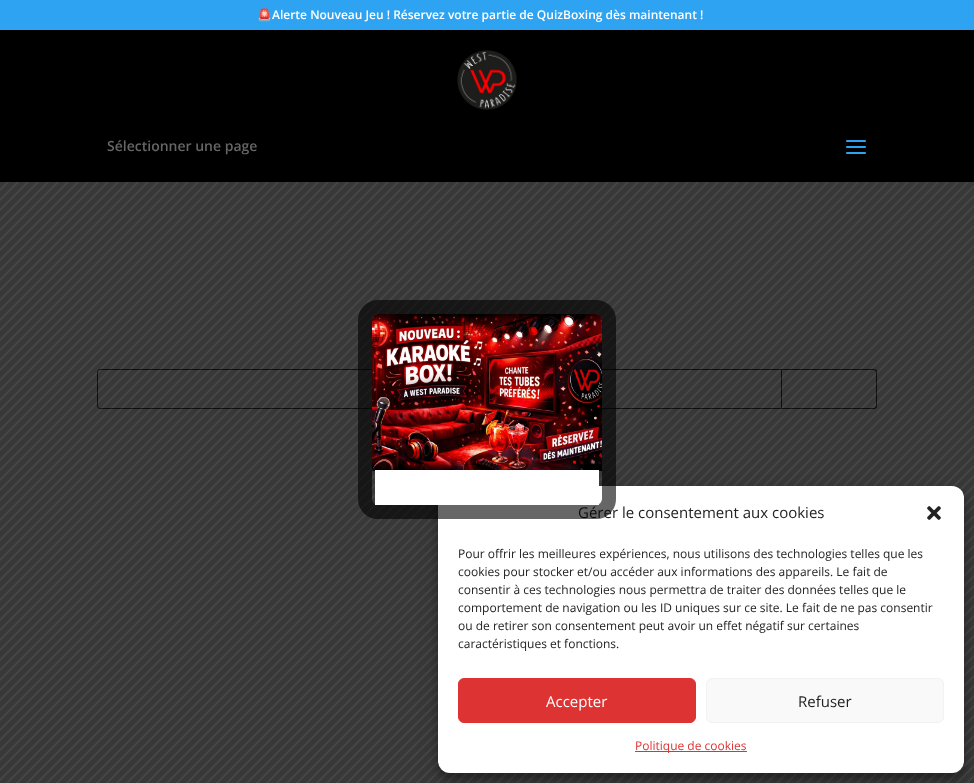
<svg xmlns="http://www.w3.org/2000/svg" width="974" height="783">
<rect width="100%" height="100%" fill="#fff"/>
<rect width="974" height="30" fill="#2ea3f2"/>
<text x="257" y="19" style="font-family:Noto Color Emoji;font-size:12px;font-weight:bold;fill:#fff">🚨</text>
<text x="272" y="19" style="font-family:Open Sans;font-size:12px;font-weight:600;fill:#fff">Alerte Nouveau Jeu ! Réservez votre partie de QuizBoxing dès maintenant !</text>
<rect y="30" width="974" height="152" fill="#000"/>
<image x="457" y="50" width="60" height="60" href="media/1.png"/>
<text x="107" y="151" style="font-family:Open Sans;font-size:14px;font-weight:600;fill:#666">Sélectionner une page</text>
<image x="846" y="140" width="20" height="14" href="media/2.png"/>
<rect x="97.5" y="369.5" width="779" height="39" rx="2.5" fill="none" stroke="#2c2c2c"/>
<path d="M781.5 369.5h92.5c1.5 0 2.5 1 2.5 2.5v34c0 1.5-1 2.5-2.5 2.5h-92.5z" fill="none" stroke="#2c2c2c"/>
<image x="0" y="182" width="974" height="601" href="media/3.png"/>
<rect x="438" y="492" width="526" height="287" rx="12" fill="#0000003b" filter="blur(3px)"/>
<rect x="438" y="496" width="526" height="287" rx="12" fill="#00000030" filter="blur(10px)"/>
<rect x="438" y="486" width="526" height="287" rx="12" fill="#fff"/>
<text x="578" y="518" style="font-family:Open Sans;font-size:15px;fill:#222">Gérer le consentement aux cookies</text>
<rect x="365" y="307" width="244" height="205" rx="13" fill="none" stroke="#00000099" stroke-width="14"/>
<image x="372" y="314" width="230" height="157" href="media/4.png"/>
<rect x="375" y="470" width="224" height="35" fill="#fff"/>
<image x="927" y="506" width="14" height="14" href="media/5.png"/>
<text x="458" y="558" style="font-family:Open Sans;font-size:12px;fill:#222">Pour offrir les meilleures expériences, nous utilisons des technologies telles que les</text>
<text x="458" y="576" style="font-family:Open Sans;font-size:12px;fill:#222">cookies pour stocker et/ou accéder aux informations des appareils. Le fait de</text>
<text x="458" y="594" style="font-family:Open Sans;font-size:12px;fill:#222">consentir à ces technologies nous permettra de traiter des données telles que le</text>
<text x="458" y="612" style="font-family:Open Sans;font-size:12px;fill:#222">comportement de navigation ou les ID uniques sur ce site. Le fait de ne pas consentir</text>
<text x="458" y="630" style="font-family:Open Sans;font-size:12px;fill:#222">ou de retirer son consentement peut avoir un effet négatif sur certaines</text>
<text x="458" y="648" style="font-family:Open Sans;font-size:12px;fill:#222">caractéristiques et fonctions.</text>
<rect x="458.5" y="678.5" width="237" height="44" rx="5.5" fill="#d33" stroke="#d33"/>
<text x="546" y="707" style="font-family:Open Sans;font-size:15px;fill:#fff">Accepter</text>
<rect x="706.5" y="678.5" width="237" height="44" rx="5.5" fill="#f9f9f9" stroke="#f2f2f2"/>
<text x="798" y="707" style="font-family:Open Sans;font-size:15px;fill:#222">Refuser</text>
<rect x="635" y="751" width="112" height="1" fill="#d33"/>
<text x="635" y="750" style="font-family:Open Sans;font-size:12px;fill:#d33">Politique de cookies</text>
</svg>
